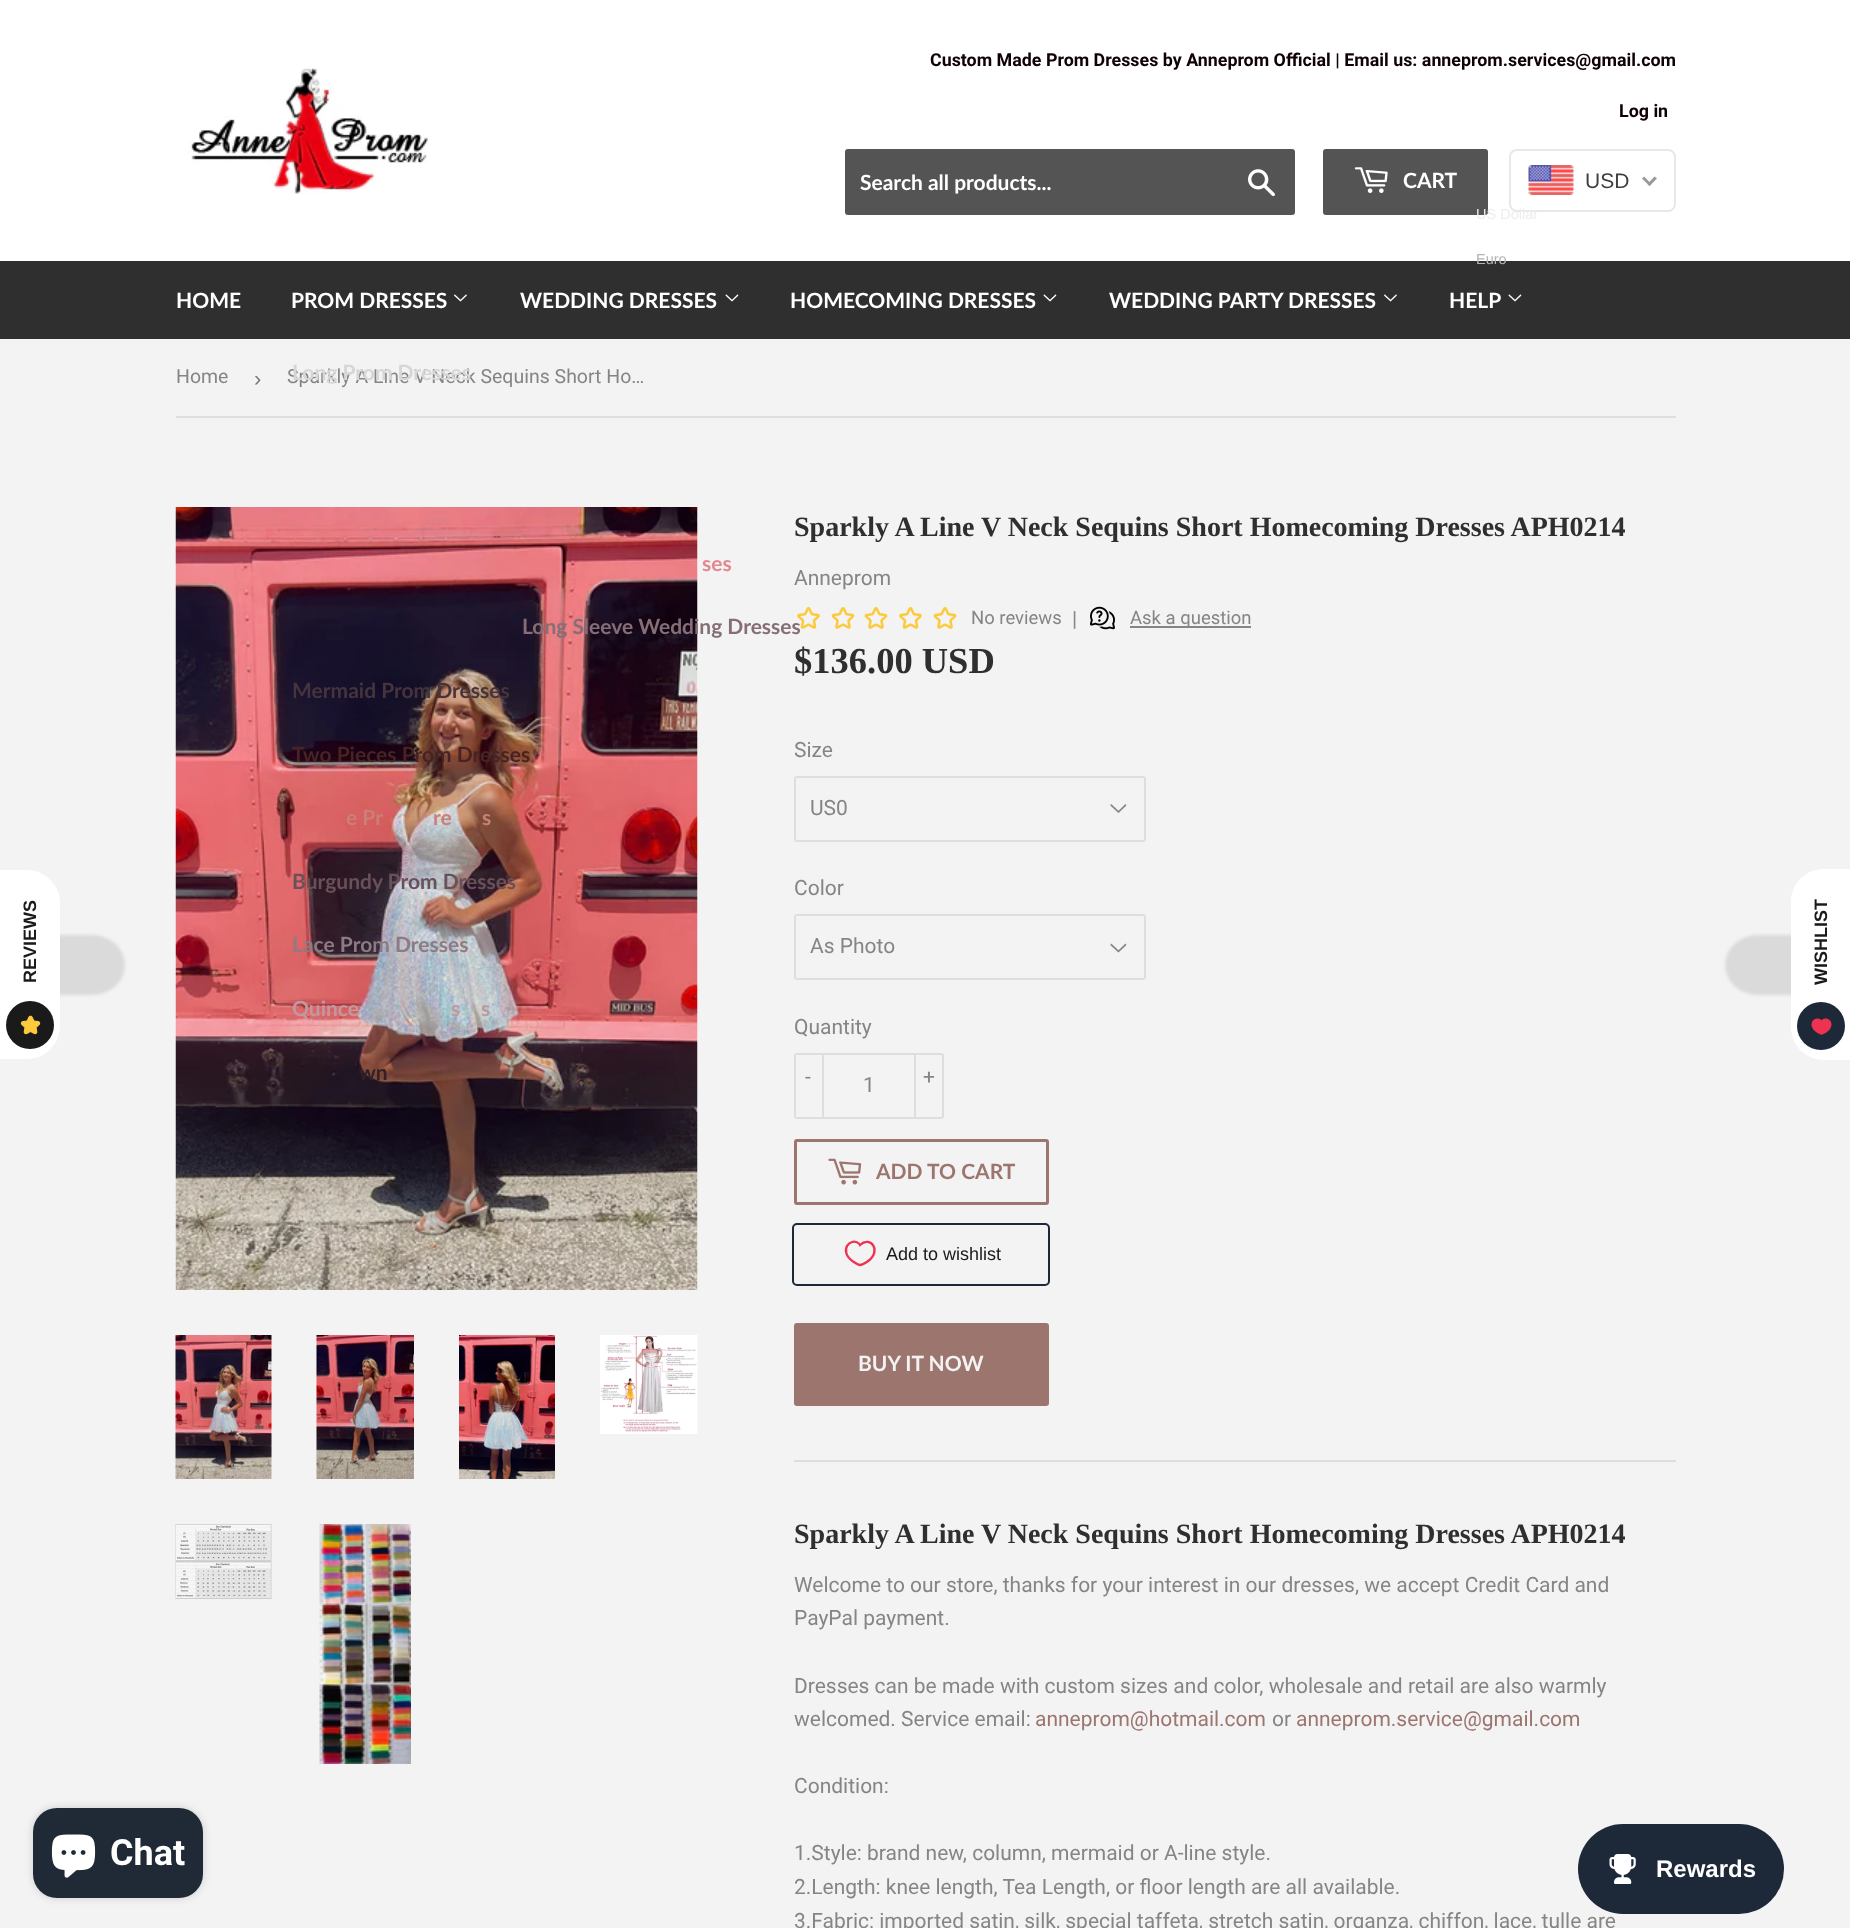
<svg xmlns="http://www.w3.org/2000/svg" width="1850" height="1928">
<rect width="100%" height="100%" fill="#f3f3f3"/>
<rect width="1850" height="261" fill="#fff"/>
<image x="188" y="68" width="240" height="126" href="media/1.png"/>
<text x="930" y="66" style="font-family:Roboto;font-size:17.85px;font-weight:bold;fill:#0f0107">Custom Made Prom Dresses by Anneprom Official | Email us: anneprom.services@gmail.com</text>
<text x="1619" y="117" style="font-family:Roboto;font-size:17.85px;font-weight:bold;fill:#0f0107">Log in</text>
<rect x="845" y="149" width="450" height="66" rx="3" fill="#545454"/>
<text x="860" y="190" style="font-family:Lato;font-size:21px;font-weight:bold;fill:#fff">Search all products...</text>
<image x="1248" y="169" width="27" height="28" href="media/2.png"/>
<rect x="1323" y="149" width="165" height="66" rx="3" fill="#545454"/>
<image x="1354" y="167" width="34" height="26" href="media/3.png"/>
<text x="1403" y="188" style="font-family:Lato;font-size:21px;font-weight:bold;fill:#fff">CART</text>
<rect x="1510" y="150" width="165" height="61" rx="7" fill="none" stroke="#e8e8e8" stroke-width="2"/>
<image x="1528" y="165" width="46" height="30" href="media/4.png"/>
<text x="1585" y="188" style="font-family:Liberation Sans;font-size:21px;fill:#403f3f">USD</text>
<path d="M1654.5 176.5l2.5 2l-7.5 7.5l-2-2z" fill="#999"/>
<path d="M1644 176.5l7.5 7.5l-2 2l-7.5-7.5z" fill="#999"/>
<text x="1476" y="219" style="font-family:Liberation Sans;font-size:14.5px;fill:#ededed">US Dollar</text>
<rect y="261" width="1850" height="78" fill="#2f2f2f"/>
<text x="1476" y="264" style="font-family:Liberation Sans;font-size:14.5px;fill:#b4b4b4">Euro</text>
<text x="176" y="308" style="font-family:Lato;font-size:21px;font-weight:bold;fill:#fff">HOME</text>
<text x="291" y="308" style="font-family:Lato;font-size:21px;font-weight:bold;fill:#fff">PROM DRESSES</text>
<image x="454" y="294" width="13" height="8" href="media/5.png"/>
<text x="287" y="383" style="font-family:Roboto;font-size:19.5px;fill:#858585">Sparkly A Line V Neck Sequins Short Ho…</text>
<text x="292" y="380" style="font-family:Lato;font-size:21px;font-weight:bold;fill:#d6d6d6">Long Prom Dresses</text>
<image x="175" y="507" width="523" height="783" href="media/7.png"/>
<text x="292" y="698" style="font-family:Lato;font-size:21px;font-weight:bold;fill:#45343d">Mermaid Prom Dresses</text>
<text x="292" y="762" style="font-family:Lato;font-size:21px;font-weight:bold;fill:#482324">Two Pieces Prom Dresses</text>
<text x="346" y="825" style="font-family:Lato;font-size:21px;font-weight:bold;fill:#ca7f79">e Pr</text>
<text x="433" y="825" style="font-family:Lato;font-size:21px;font-weight:bold;fill:#ca7f79">re</text>
<text x="482" y="825" style="font-family:Lato;font-size:21px;font-weight:bold;fill:#ca7f79">s</text>
<text x="292" y="889" style="font-family:Lato;font-size:21px;font-weight:bold;fill:#6a5058">Burgundy Prom Dresses</text>
<text x="292" y="952" style="font-family:Lato;font-size:21px;font-weight:bold;fill:#8c7b84">Lace Prom Dresses</text>
<text x="292" y="1016" style="font-family:Lato;font-size:21px;font-weight:bold;fill:#be999f">Quince</text>
<text x="451" y="1016" style="font-family:Lato;font-size:21px;font-weight:bold;fill:#be999f">s</text>
<text x="481" y="1016" style="font-family:Lato;font-size:21px;font-weight:bold;fill:#be999f">s</text>
<text x="359" y="1080" style="font-family:Lato;font-size:21px;font-weight:bold;fill:#342026">wn</text>
<text x="520" y="308" style="font-family:Lato;font-size:21px;font-weight:bold;fill:#fff">WEDDING DRESSES</text>
<image x="725" y="294" width="14" height="8" href="media/6.png"/>
<text x="702" y="571" style="font-family:Lato;font-size:21px;font-weight:bold;fill:#e3888f">ses</text>
<image x="797" y="607" width="23" height="22" href="media/14.png"/>
<text x="522" y="634" style="font-family:Lato;font-size:21px;font-weight:bold;fill:#866e77">Long Sleeve Wedding Dresses</text>
<text x="790" y="308" style="font-family:Lato;font-size:21px;font-weight:bold;fill:#fff">HOMECOMING DRESSES</text>
<image x="1043" y="294" width="14" height="8" href="media/6.png"/>
<text x="1109" y="308" style="font-family:Lato;font-size:21px;font-weight:bold;fill:#fff">WEDDING PARTY DRESSES</text>
<image x="1384" y="294" width="13" height="8" href="media/5.png"/>
<text x="1449" y="308" style="font-family:Lato;font-size:21px;font-weight:bold;fill:#fff">HELP</text>
<image x="1508" y="294" width="14" height="8" href="media/6.png"/>
<rect x="176" y="416" width="1500" height="2" fill="#dedede"/>
<text x="176" y="383" style="font-family:Roboto;font-size:19.5px;fill:#858585">Home</text>
<text x="254" y="386" style="font-family:Liberation Sans;font-size:22px;fill:#767676">›</text>
<image x="175" y="1335" width="97" height="144" href="media/8.png"/>
<image x="316" y="1335" width="98" height="144" href="media/9.png"/>
<image x="459" y="1335" width="96" height="144" href="media/10.png"/>
<image x="600" y="1335" width="98" height="99" href="media/11.png"/>
<image x="175" y="1524" width="97" height="75" href="media/12.png"/>
<image x="319" y="1524" width="92" height="240" href="media/13.png"/>
<text x="794" y="536" style="font-family:Liberation Serif;font-size:28px;font-weight:bold;fill:#2f2f2f">Sparkly A Line V Neck Sequins Short Homecoming Dresses APH0214</text>
<text x="794" y="585" style="font-family:Roboto;font-size:21px;fill:#858585">Anneprom</text>
<image x="831" y="607" width="24" height="22" href="media/15.png"/>
<image x="864" y="607" width="24" height="22" href="media/15.png"/>
<image x="899" y="607" width="23" height="22" href="media/14.png"/>
<image x="933" y="607" width="24" height="22" href="media/15.png"/>
<text x="971" y="624" style="font-family:Roboto;font-size:18.5px;fill:#858585">No reviews</text>
<text x="1072" y="626" style="font-family:Roboto;font-size:21px;fill:#858585">|</text>
<image x="1090" y="606" width="25" height="24" href="media/16.png"/>
<rect x="1130" y="626" width="121" height="2" fill="#858585"/>
<text x="1130" y="624" style="font-family:Roboto;font-size:18.5px;fill:#858585">Ask a question</text>
<text x="794" y="673" style="font-family:Liberation Serif;font-size:36.5px;font-weight:bold;fill:#2f2f2f">$136.00 USD</text>
<text x="794" y="757" style="font-family:Roboto;font-size:21px;fill:#858585">Size</text>
<image x="1110" y="804" width="17" height="9" href="media/17.png"/>
<rect x="795" y="777" width="350" height="64" rx="2" fill="none" stroke="#dedede" stroke-width="2"/>
<text x="810" y="815" style="font-family:Roboto;font-size:21px;fill:#858585">US0</text>
<text x="794" y="895" style="font-family:Roboto;font-size:21px;fill:#858585">Color</text>
<image x="1110" y="943" width="17" height="10" href="media/18.png"/>
<rect x="795" y="915" width="350" height="64" rx="2" fill="none" stroke="#dedede" stroke-width="2"/>
<text x="810" y="953" style="font-family:Roboto;font-size:21px;fill:#858585">As Photo</text>
<text x="794" y="1034" style="font-family:Roboto;font-size:21px;fill:#858585">Quantity</text>
<rect x="795" y="1054" width="148" height="64" rx="2" fill="none" stroke="#dedede" stroke-width="2"/>
<rect x="822" y="1053" width="2" height="66" fill="#dedede"/>
<text x="805" y="1084" style="font-family:Roboto;font-size:21px;fill:#858585">-</text>
<text x="863" y="1092" style="font-family:Roboto;font-size:21px;fill:#858585">1</text>
<rect x="914" y="1053" width="2" height="66" fill="#dedede"/>
<text x="923" y="1084" style="font-family:Roboto;font-size:21px;fill:#858585">+</text>
<rect x="795.5" y="1140.5" width="252" height="63" rx="1.5" fill="none" stroke="#9c756f" stroke-width="3"/>
<image x="828" y="1158" width="34" height="27" href="media/19.png"/>
<text x="876" y="1179" style="font-family:Lato;font-size:21px;font-weight:bold;fill:#9c756f">ADD TO CART</text>
<rect x="793" y="1224" width="256" height="61" rx="4" fill="none" stroke="#1d2939" stroke-width="2"/>
<path d="M859.5 1244l.5 1c10.5-10 22.5 6 7.5 16.5c-1.5 1-5 3.5-7.5 3.5c-2 0-5.5-2.5-7-3.5c-15.5-11-2-25.5 6.5-17.5z" fill="none" stroke="#ef3251" stroke-width="2.3"/>
<text x="886" y="1260" style="font-family:Liberation Sans;font-size:18px;fill:#1a1a1a">Add to wishlist</text>
<rect x="794" y="1323" width="255" height="83" rx="3" fill="#9c756f"/>
<text x="858" y="1371" style="font-family:Lato;font-size:21px;font-weight:bold;fill:#f3f3f3">BUY IT NOW</text>
<rect x="794" y="1460" width="882" height="2" fill="#dedede"/>
<text x="794" y="1543" style="font-family:Liberation Serif;font-size:28px;font-weight:bold;fill:#2f2f2f">Sparkly A Line V Neck Sequins Short Homecoming Dresses APH0214</text>
<text x="794" y="1592" style="font-family:Roboto;font-size:21px;fill:#858585">Welcome to our store, thanks for your interest in our dresses, we accept Credit Card and</text>
<text x="794" y="1625" style="font-family:Roboto;font-size:21px;fill:#858585">PayPal payment.</text>
<text x="794" y="1693" style="font-family:Roboto;font-size:21px;fill:#858585">Dresses can be made with custom sizes and color, wholesale and retail are also warmly</text>
<text x="794" y="1726" style="font-family:Roboto;font-size:21px;fill:#858585">welcomed. Service email:</text>
<text x="1035" y="1726" style="font-family:Roboto;font-size:21px;fill:#9c756f">anneprom@hotmail.com</text>
<text x="1272" y="1726" style="font-family:Roboto;font-size:21px;fill:#858585">or</text>
<text x="1296" y="1726" style="font-family:Roboto;font-size:21px;fill:#9c756f">anneprom.service@gmail.com</text>
<text x="794" y="1793" style="font-family:Roboto;font-size:21px;fill:#858585">Condition:</text>
<text x="794" y="1860" style="font-family:Roboto;font-size:21px;fill:#858585">1.Style: brand new, column, mermaid or A-line style.</text>
<text x="794" y="1894" style="font-family:Roboto;font-size:21px;fill:#858585">2.Length: knee length, Tea Length, or floor length are all available.</text>
<text x="794" y="1928" style="font-family:Roboto;font-size:21px;fill:#858585">3.Fabric: imported satin, silk, special taffeta, stretch satin, organza, chiffon, lace, tulle are</text>
<rect x="-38" y="935" width="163" height="60" rx="33" fill="#dadada" filter="blur(1.5px)"/>
<path d="M0 1059v-189h27c18 0 33 15 33 33v123c0 18-15 33-33 33z" fill="#fff"/>
<text x="36" y="983" transform="rotate(-90 36 983)" style="font-family:Liberation Sans;font-size:18px;font-weight:bold;fill:#1a1a1a">REVIEWS</text>
<circle cx="30" cy="1025" r="24" fill="#1a1a1a"/>
<image x="20" y="1015" width="21" height="20" href="media/20.png"/>
<rect x="1725" y="935" width="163" height="60" rx="33" fill="#dadada" filter="blur(1.5px)"/>
<path d="M1791 1027v-125c0-19 15-33 33-33h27v191h-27c-18 0-33-14-33-33z" fill="#fff"/>
<text x="1827" y="985" transform="rotate(-90 1827 985)" style="font-family:Liberation Sans;font-size:18px;font-weight:bold;fill:#1a1a1a">WISHLIST</text>
<circle cx="1821" cy="1026" r="24" fill="#1d2939"/>
<image x="1811" y="1018" width="21" height="17" href="media/21.png"/>
<rect x="1578" y="1824" width="206" height="90" rx="45" fill="#1d2939"/>
<image x="1609" y="1854" width="27" height="30" href="media/22.png"/>
<text x="1656" y="1877" style="font-family:Liberation Sans;font-size:24px;font-weight:bold;fill:#fff">Rewards</text>
<rect x="33" y="1808" width="170" height="90" rx="24" fill="#00000026" filter="blur(4px)"/>
<rect x="33" y="1808" width="170" height="90" rx="24" fill="#202a36"/>
<image x="51" y="1834" width="45" height="44" href="media/23.png"/>
<text x="110" y="1865" style="font-family:Roboto;font-size:36px;font-weight:bold;fill:#fff">Chat</text>
</svg>
